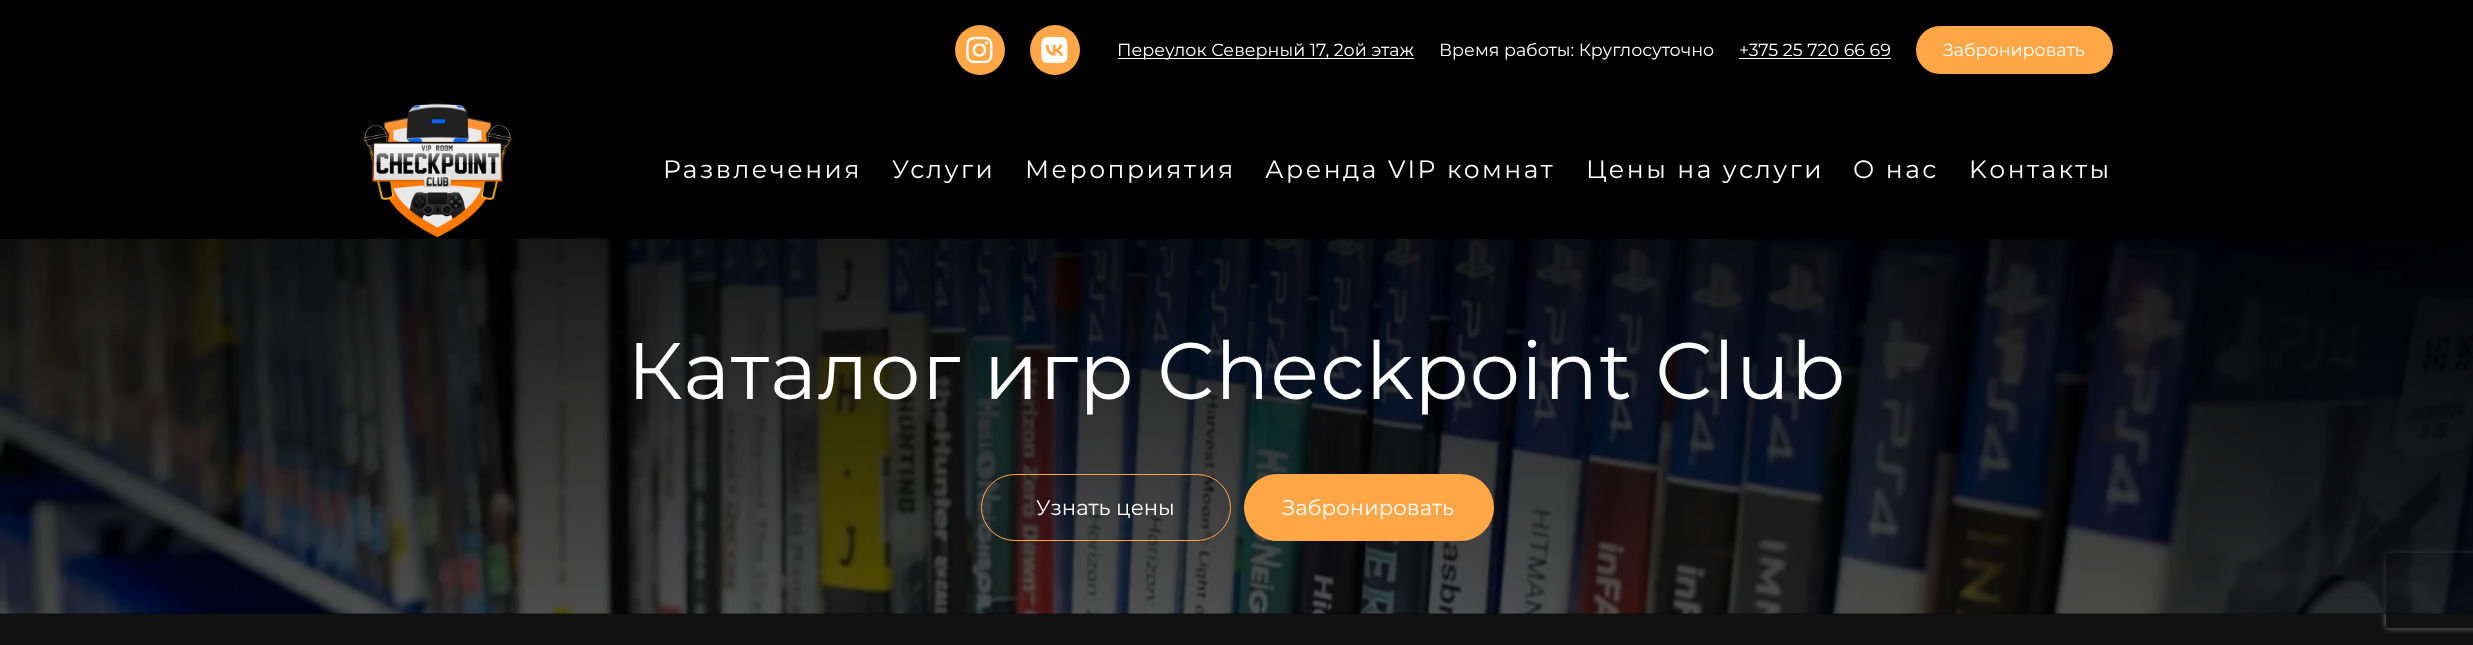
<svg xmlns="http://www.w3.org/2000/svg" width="2473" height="645">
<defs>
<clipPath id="clip1"><path d="M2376 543h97v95h-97zm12.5 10h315c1.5 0 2.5 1 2.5 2.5v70c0 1.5-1 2.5-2.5 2.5h-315c-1.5 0-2.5-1-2.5-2.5v-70c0-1.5 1-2.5 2.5-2.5z" clip-rule="evenodd"/></clipPath>
</defs>
<rect width="100%" height="100%" fill="#000"/>
<circle cx="980" cy="50" r="25" fill="#ffa646"/>
<image x="966" y="36" width="27" height="28" href="media/1.png"/>
<circle cx="1055" cy="50" r="25" fill="#ffa646"/>
<image x="1041" y="36" width="27" height="28" href="media/2.png"/>
<rect x="1118" y="58" width="296" height="1" fill="#fff"/>
<text x="1117" y="56" style="font-family:Montserrat;font-size:17.5px;fill:#fff">Переулок Северный 17, 2ой этаж</text>
<text x="1439" y="56" style="font-family:Montserrat;font-size:17.5px;fill:#fff">Время работы: Круглосуточно</text>
<text x="1739" y="56" style="font-family:Montserrat;font-size:17.5px;fill:#fff">+375 25 720 66 69</text>
<rect x="1739" y="58" width="152" height="1" fill="#fff"/>
<rect x="1916" y="26" width="197" height="48" rx="24" fill="#ffa646"/>
<text x="1943" y="56" style="font-family:Montserrat;font-size:17.5px;fill:#fff">Забронировать</text>
<image x="362" y="100" width="151" height="138" href="media/3.png"/>
<text x="663" y="178" style="font-family:Montserrat;font-size:25px;letter-spacing:2.5px;fill:#fff">Развлечения</text>
<text x="892" y="178" style="font-family:Montserrat;font-size:25px;letter-spacing:2.5px;fill:#fff">Услуги</text>
<text x="1025" y="178" style="font-family:Montserrat;font-size:25px;letter-spacing:2.5px;fill:#fff">Мероприятия</text>
<text x="1265" y="178" style="font-family:Montserrat;font-size:25px;letter-spacing:2.5px;fill:#fff">Аренда VIP комнат</text>
<text x="1586" y="178" style="font-family:Montserrat;font-size:25px;letter-spacing:2.5px;fill:#fff">Цены на услуги</text>
<text x="1853" y="178" style="font-family:Montserrat;font-size:25px;letter-spacing:2.5px;fill:#fff">О нас</text>
<text x="1969" y="178" style="font-family:Montserrat;font-size:25px;letter-spacing:2.5px;fill:#fff">Kонтакты</text>
<rect y="613" width="2473" height="32" fill="#111"/>
<image x="0" y="238" width="2473" height="376" href="media/4.png"/>
<g clip-path="url(#clip1)">
<rect x="2386" y="553" width="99" height="75" rx="2.5" fill="#808080" filter="blur(3px)"/>
</g>
<rect y="239" width="2473" height="375" fill="#00000099"/>
<text x="627" y="399" style="font-family:Montserrat;font-size:80px;letter-spacing:1.25px;fill:#fff">Каталог игр Checkpoint Club</text>
<rect x="981.5" y="474.5" width="249" height="66" rx="33" fill="none" stroke="#ffa646"/>
<text x="1036" y="515" style="font-family:Montserrat;font-size:21.25px;fill:#fff">Узнать цены</text>
<rect x="1244" y="474" width="250" height="67" rx="33.5" fill="#ffa646"/>
<text x="1282" y="515" style="font-family:Montserrat;font-size:21.25px;fill:#fff">Забронировать</text>
</svg>
